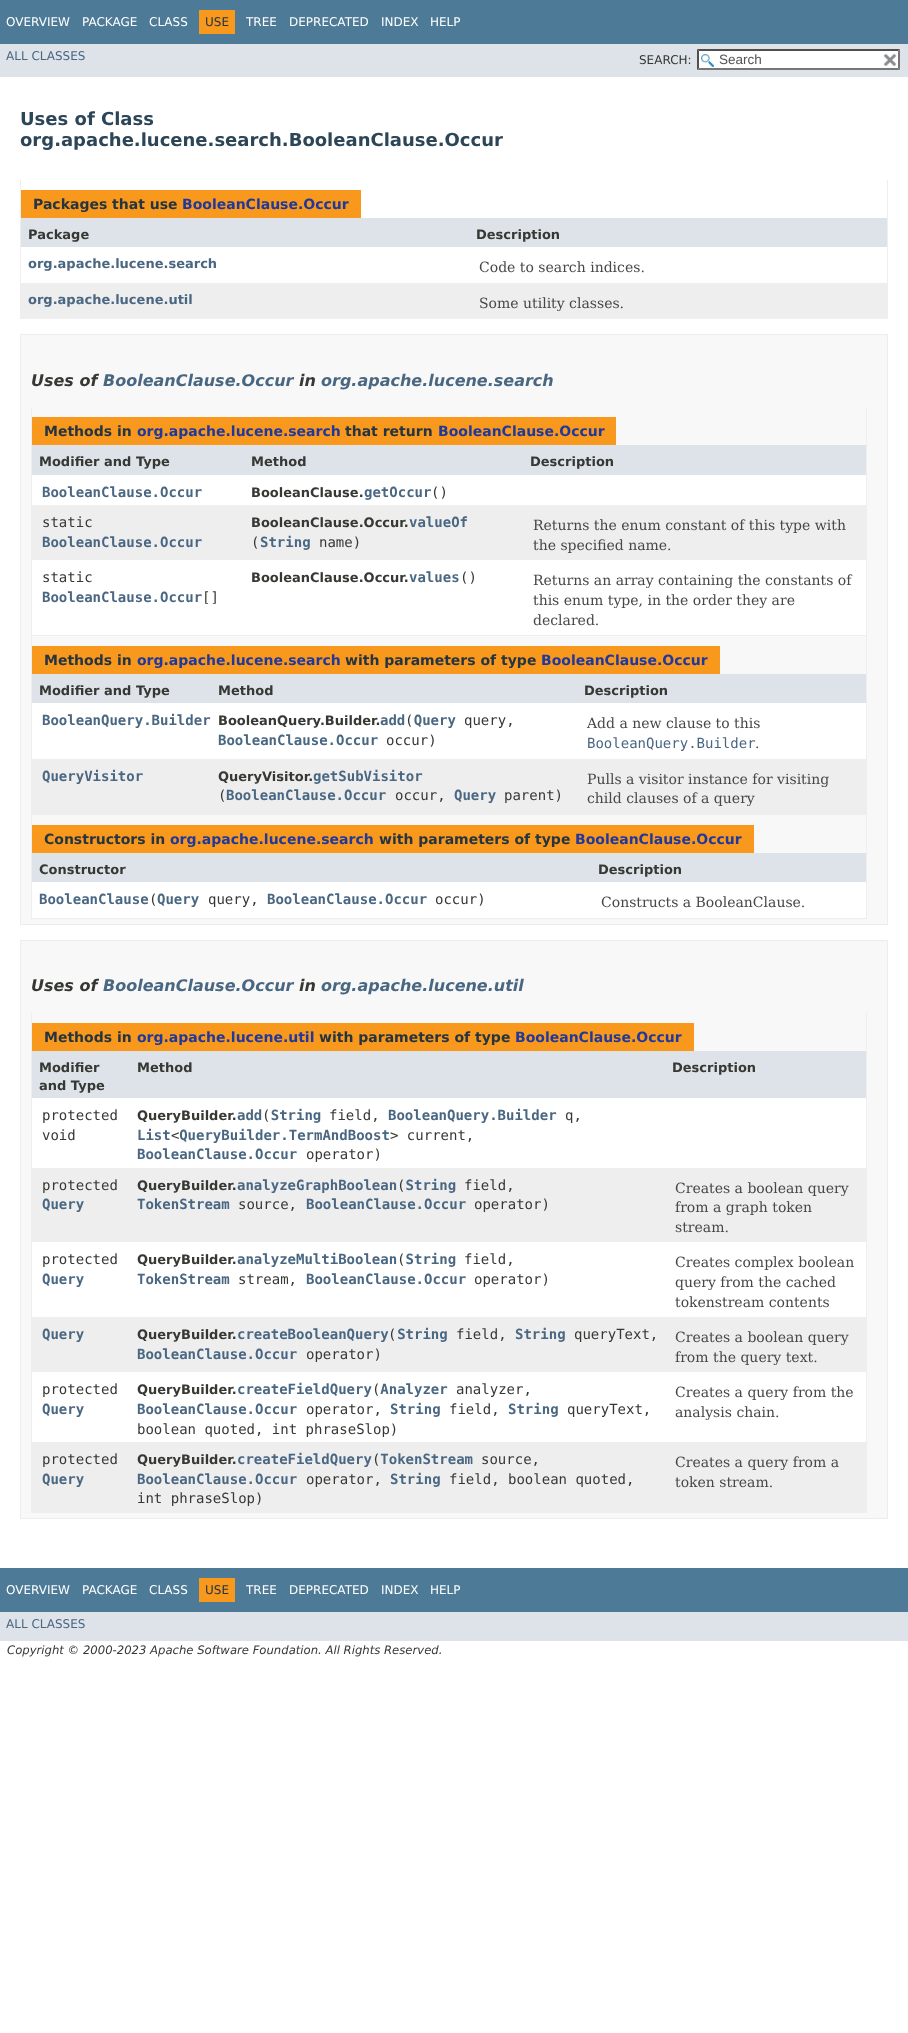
<svg xmlns="http://www.w3.org/2000/svg" width="908" height="2033">
<rect width="100%" height="100%" fill="#fff"/>
<rect width="908" height="44" fill="#4d7a97"/>
<text x="6" y="26" style="font-family:DejaVu Sans;font-size:12px;fill:#fff">OVERVIEW</text>
<text x="82" y="26" style="font-family:DejaVu Sans;font-size:12px;fill:#fff">PACKAGE</text>
<text x="149" y="26" style="font-family:DejaVu Sans;font-size:12px;fill:#fff">CLASS</text>
<rect x="199" y="10" width="36" height="24" fill="#f8981d"/>
<text x="205" y="26" style="font-family:DejaVu Sans;font-size:12px;fill:#253441">USE</text>
<text x="246" y="26" style="font-family:DejaVu Sans;font-size:12px;fill:#fff">TREE</text>
<text x="289" y="26" style="font-family:DejaVu Sans;font-size:12px;fill:#fff">DEPRECATED</text>
<text x="381" y="26" style="font-family:DejaVu Sans;font-size:12px;fill:#fff">INDEX</text>
<text x="430" y="26" style="font-family:DejaVu Sans;font-size:12px;fill:#fff">HELP</text>
<rect y="44" width="908" height="33" fill="#dee3e9"/>
<text x="6" y="60" style="font-family:DejaVu Sans;font-size:12px;fill:#4a6782">ALL CLASSES</text>
<text x="639" y="64" style="font-family:DejaVu Sans;font-size:12px;fill:#353833">SEARCH:</text>
<rect x="697" y="49" width="203" height="21" fill="#fff"/>
<image x="701" y="54" width="13" height="13" href="media/1.png"/>
<path d="M697 49h203l-2 2h-199z" fill="#4f4f4f"/>
<path d="M900 49v21l-2-2v-17z" fill="#767676"/>
<path d="M900 70h-203l2-2h199z" fill="#767676"/>
<path d="M697 70v-21l2 2v17z" fill="#4f4f4f"/>
<text x="719" y="64" style="font-family:Liberation Sans;font-size:13.5px;fill:#545454">Search</text>
<image x="883" y="54" width="14" height="12" href="media/2.png"/>
<text x="20" y="125" style="font-family:DejaVu Sans;font-size:18px;font-weight:bold;fill:#2c4557">Uses of Class</text>
<text x="20" y="146" style="font-family:DejaVu Sans;font-size:18px;font-weight:bold;fill:#2c4557">org.apache.lucene.search.BooleanClause.Occur</text>
<rect x="887" y="180" width="1" height="139" fill="#eee"/>
<rect x="20" y="318" width="868" height="1" fill="#eee"/>
<rect x="20" y="180" width="1" height="139" fill="#eee"/>
<rect x="21" y="190" width="340" height="28" fill="#f8981d"/>
<text x="33" y="209" style="font-family:DejaVu Sans;font-size:14px;font-weight:bold;fill:#253441">Packages that use</text>
<text x="182" y="209" style="font-family:DejaVu Sans;font-size:14px;font-weight:bold;fill:#1f389c">BooleanClause.Occur</text>
<rect x="21" y="218" width="866" height="29" fill="#dee3e9"/>
<text x="28" y="239" style="font-family:DejaVu Sans;font-size:13px;font-weight:bold;fill:#353833">Package</text>
<text x="476" y="239" style="font-family:DejaVu Sans;font-size:13px;font-weight:bold;fill:#353833">Description</text>
<text x="28" y="268" style="font-family:DejaVu Sans;font-size:13px;font-weight:bold;fill:#4a6782">org.apache.lucene.search</text>
<text x="479" y="272" style="font-family:DejaVu Serif;font-size:14px;fill:#474747">Code to search indices.</text>
<rect x="21" y="283" width="866" height="35" fill="#eeeeef"/>
<text x="28" y="304" style="font-family:DejaVu Sans;font-size:13px;font-weight:bold;fill:#4a6782">org.apache.lucene.util</text>
<text x="479" y="308" style="font-family:DejaVu Serif;font-size:14px;fill:#474747">Some utility classes.</text>
<rect x="20.5" y="334.5" width="867" height="590" fill="#f8f8f8" stroke="#ededed"/>
<text x="31" y="386" style="font-family:DejaVu Sans;font-size:16px;font-weight:bold;font-style:italic;fill:#353833">Uses of</text>
<text x="103" y="386" style="font-family:DejaVu Sans;font-size:16px;font-weight:bold;font-style:italic;fill:#4a6782">BooleanClause.Occur</text>
<text x="299" y="386" style="font-family:DejaVu Sans;font-size:16px;font-weight:bold;font-style:italic;fill:#353833">in</text>
<text x="321" y="386" style="font-family:DejaVu Sans;font-size:16px;font-weight:bold;font-style:italic;fill:#4a6782">org.apache.lucene.search</text>
<rect x="866" y="407" width="1" height="512" fill="#eee"/>
<rect x="31" y="635" width="836" height="1" fill="#eee"/>
<rect x="31" y="407" width="1" height="229" fill="#eee"/>
<rect x="32" y="417" width="584" height="28" fill="#f8981d"/>
<text x="44" y="436" style="font-family:DejaVu Sans;font-size:14px;font-weight:bold;fill:#253441">Methods in</text>
<text x="137" y="436" style="font-family:DejaVu Sans;font-size:14px;font-weight:bold;fill:#1f389c">org.apache.lucene.search</text>
<text x="345" y="436" style="font-family:DejaVu Sans;font-size:14px;font-weight:bold;fill:#253441">that return</text>
<text x="438" y="436" style="font-family:DejaVu Sans;font-size:14px;font-weight:bold;fill:#1f389c">BooleanClause.Occur</text>
<rect x="32" y="445" width="834" height="30" fill="#dee3e9"/>
<text x="39" y="466" style="font-family:DejaVu Sans;font-size:13px;font-weight:bold;fill:#353833">Modifier and Type</text>
<text x="251" y="466" style="font-family:DejaVu Sans;font-size:13px;font-weight:bold;fill:#353833">Method</text>
<text x="530" y="466" style="font-family:DejaVu Sans;font-size:13px;font-weight:bold;fill:#353833">Description</text>
<rect x="32" y="475" width="834" height="30" fill="#fff"/>
<text x="42" y="497" style="font-family:DejaVu Sans Mono;font-size:14px;font-weight:bold;fill:#4a6782">BooleanClause.Occur</text>
<text x="251" y="497" style="font-family:DejaVu Sans;font-size:13px;font-weight:bold;fill:#353833">BooleanClause.</text>
<text x="364" y="497" style="font-family:DejaVu Sans Mono;font-size:14px;font-weight:bold;fill:#4a6782">getOccur</text>
<text x="431" y="497" style="font-family:DejaVu Sans Mono;font-size:14px;fill:#353833">()</text>
<rect x="32" y="505" width="834" height="55" fill="#eeeeef"/>
<text x="42" y="527" style="font-family:DejaVu Sans Mono;font-size:14px;fill:#353833">static</text>
<text x="42" y="547" style="font-family:DejaVu Sans Mono;font-size:14px;font-weight:bold;fill:#4a6782">BooleanClause.Occur</text>
<text x="251" y="527" style="font-family:DejaVu Sans;font-size:13px;font-weight:bold;fill:#353833">BooleanClause.Occur.</text>
<text x="409" y="527" style="font-family:DejaVu Sans Mono;font-size:14px;font-weight:bold;fill:#4a6782">valueOf</text>
<text x="251" y="547" style="font-family:DejaVu Sans Mono;font-size:14px;fill:#353833">(</text>
<text x="260" y="547" style="font-family:DejaVu Sans Mono;font-size:14px;font-weight:bold;fill:#4a6782">String</text>
<text x="319" y="547" style="font-family:DejaVu Sans Mono;font-size:14px;fill:#353833">name)</text>
<text x="533" y="530" style="font-family:DejaVu Serif;font-size:14px;fill:#474747">Returns the enum constant of this type with</text>
<text x="533" y="550" style="font-family:DejaVu Serif;font-size:14px;fill:#474747">the specified name.</text>
<rect x="32" y="560" width="834" height="75" fill="#fff"/>
<text x="42" y="582" style="font-family:DejaVu Sans Mono;font-size:14px;fill:#353833">static</text>
<text x="42" y="602" style="font-family:DejaVu Sans Mono;font-size:14px;font-weight:bold;fill:#4a6782">BooleanClause.Occur</text>
<text x="202" y="602" style="font-family:DejaVu Sans Mono;font-size:14px;fill:#353833">[]</text>
<text x="251" y="582" style="font-family:DejaVu Sans;font-size:13px;font-weight:bold;fill:#353833">BooleanClause.Occur.</text>
<text x="409" y="582" style="font-family:DejaVu Sans Mono;font-size:14px;font-weight:bold;fill:#4a6782">values</text>
<text x="460" y="582" style="font-family:DejaVu Sans Mono;font-size:14px;fill:#353833">()</text>
<text x="533" y="585" style="font-family:DejaVu Serif;font-size:14px;fill:#474747">Returns an array containing the constants of</text>
<text x="533" y="605" style="font-family:DejaVu Serif;font-size:14px;fill:#474747">this enum type, in the order they are</text>
<text x="533" y="625" style="font-family:DejaVu Serif;font-size:14px;fill:#474747">declared.</text>
<rect x="31" y="814" width="836" height="1" fill="#eee"/>
<rect x="31" y="636" width="1" height="179" fill="#eee"/>
<rect x="32" y="646" width="688" height="28" fill="#f8981d"/>
<text x="44" y="665" style="font-family:DejaVu Sans;font-size:14px;font-weight:bold;fill:#253441">Methods in</text>
<text x="137" y="665" style="font-family:DejaVu Sans;font-size:14px;font-weight:bold;fill:#1f389c">org.apache.lucene.search</text>
<text x="345" y="665" style="font-family:DejaVu Sans;font-size:14px;font-weight:bold;fill:#253441">with parameters of type</text>
<text x="541" y="665" style="font-family:DejaVu Sans;font-size:14px;font-weight:bold;fill:#1f389c">BooleanClause.Occur</text>
<rect x="32" y="674" width="834" height="29" fill="#dee3e9"/>
<text x="39" y="695" style="font-family:DejaVu Sans;font-size:13px;font-weight:bold;fill:#353833">Modifier and Type</text>
<text x="218" y="695" style="font-family:DejaVu Sans;font-size:13px;font-weight:bold;fill:#353833">Method</text>
<text x="584" y="695" style="font-family:DejaVu Sans;font-size:13px;font-weight:bold;fill:#353833">Description</text>
<rect x="32" y="703" width="834" height="56" fill="#fff"/>
<text x="42" y="725" style="font-family:DejaVu Sans Mono;font-size:14px;font-weight:bold;fill:#4a6782">BooleanQuery.Builder</text>
<text x="380" y="725" style="font-family:DejaVu Sans Mono;font-size:14px;font-weight:bold;fill:#4a6782">add Query</text>
<text x="218" y="725" style="font-family:DejaVu Sans;font-size:13px;font-weight:bold;fill:#353833">BooleanQuery.Builder.</text>
<text x="405" y="725" style="font-family:DejaVu Sans Mono;font-size:14px;fill:#353833">(</text>
<text x="464" y="725" style="font-family:DejaVu Sans Mono;font-size:14px;fill:#353833">query,</text>
<text x="218" y="745" style="font-family:DejaVu Sans Mono;font-size:14px;font-weight:bold;fill:#4a6782">BooleanClause.Occur</text>
<text x="386" y="745" style="font-family:DejaVu Sans Mono;font-size:14px;fill:#353833">occur)</text>
<text x="587" y="728" style="font-family:DejaVu Serif;font-size:14px;fill:#474747">Add a new clause to this</text>
<text x="587" y="748" style="font-family:DejaVu Sans Mono;font-size:14px;fill:#4a6782">BooleanQuery.Builder</text>
<text x="755" y="748" style="font-family:DejaVu Serif;font-size:14px;fill:#474747">.</text>
<rect x="32" y="759" width="834" height="55" fill="#eeeeef"/>
<text x="42" y="781" style="font-family:DejaVu Sans Mono;font-size:14px;font-weight:bold;fill:#4a6782">QueryVisitor</text>
<text x="218" y="781" style="font-family:DejaVu Sans;font-size:13px;font-weight:bold;fill:#353833">QueryVisitor.</text>
<text x="313" y="781" style="font-family:DejaVu Sans Mono;font-size:14px;font-weight:bold;fill:#4a6782">getSubVisitor</text>
<text x="218" y="800" style="font-family:DejaVu Sans Mono;font-size:14px;fill:#353833">(</text>
<text x="226" y="800" style="font-family:DejaVu Sans Mono;font-size:14px;font-weight:bold;fill:#4a6782">BooleanClause.Occur</text>
<text x="395" y="800" style="font-family:DejaVu Sans Mono;font-size:14px;fill:#353833">occur,</text>
<text x="454" y="800" style="font-family:DejaVu Sans Mono;font-size:14px;font-weight:bold;fill:#4a6782">Query</text>
<text x="504" y="800" style="font-family:DejaVu Sans Mono;font-size:14px;fill:#353833">parent)</text>
<text x="587" y="784" style="font-family:DejaVu Serif;font-size:14px;fill:#474747">Pulls a visitor instance for visiting</text>
<text x="587" y="803" style="font-family:DejaVu Serif;font-size:14px;fill:#474747">child clauses of a query</text>
<rect x="31" y="918" width="836" height="1" fill="#eee"/>
<rect x="31" y="815" width="1" height="104" fill="#eee"/>
<rect x="32" y="825" width="722" height="28" fill="#f8981d"/>
<text x="44" y="844" style="font-family:DejaVu Sans;font-size:14px;font-weight:bold;fill:#253441">Constructors in</text>
<text x="170" y="844" style="font-family:DejaVu Sans;font-size:14px;font-weight:bold;fill:#1f389c">org.apache.lucene.search</text>
<text x="379" y="844" style="font-family:DejaVu Sans;font-size:14px;font-weight:bold;fill:#253441">with parameters of type</text>
<text x="575" y="844" style="font-family:DejaVu Sans;font-size:14px;font-weight:bold;fill:#1f389c">BooleanClause.Occur</text>
<rect x="32" y="853" width="834" height="29" fill="#dee3e9"/>
<text x="39" y="874" style="font-family:DejaVu Sans;font-size:13px;font-weight:bold;fill:#353833">Constructor</text>
<text x="598" y="874" style="font-family:DejaVu Sans;font-size:13px;font-weight:bold;fill:#353833">Description</text>
<rect x="32" y="882" width="834" height="36" fill="#fff"/>
<text x="39" y="904" style="font-family:DejaVu Sans Mono;font-size:14px;font-weight:bold;fill:#4a6782">BooleanClause Query</text>
<text x="149" y="904" style="font-family:DejaVu Sans Mono;font-size:14px;fill:#353833">(</text>
<text x="208" y="904" style="font-family:DejaVu Sans Mono;font-size:14px;fill:#353833">query,</text>
<text x="267" y="904" style="font-family:DejaVu Sans Mono;font-size:14px;font-weight:bold;fill:#4a6782">BooleanClause.Occur</text>
<text x="435" y="904" style="font-family:DejaVu Sans Mono;font-size:14px;fill:#353833">occur)</text>
<text x="601" y="907" style="font-family:DejaVu Serif;font-size:14px;fill:#474747">Constructs a BooleanClause.</text>
<rect x="20.5" y="940.5" width="867" height="578" fill="#f8f8f8" stroke="#ededed"/>
<text x="31" y="991" style="font-family:DejaVu Sans;font-size:16px;font-weight:bold;font-style:italic;fill:#353833">Uses of</text>
<text x="103" y="991" style="font-family:DejaVu Sans;font-size:16px;font-weight:bold;font-style:italic;fill:#4a6782">BooleanClause.Occur</text>
<text x="299" y="991" style="font-family:DejaVu Sans;font-size:16px;font-weight:bold;font-style:italic;fill:#353833">in</text>
<text x="321" y="991" style="font-family:DejaVu Sans;font-size:16px;font-weight:bold;font-style:italic;fill:#4a6782">org.apache.lucene.util</text>
<rect x="866" y="1013" width="1" height="500" fill="#eee"/>
<rect x="31" y="1512" width="836" height="1" fill="#eee"/>
<rect x="31" y="1013" width="1" height="500" fill="#eee"/>
<rect x="32" y="1023" width="662" height="28" fill="#f8981d"/>
<text x="44" y="1042" style="font-family:DejaVu Sans;font-size:14px;font-weight:bold;fill:#253441">Methods in</text>
<text x="137" y="1042" style="font-family:DejaVu Sans;font-size:14px;font-weight:bold;fill:#1f389c">org.apache.lucene.util</text>
<text x="319" y="1042" style="font-family:DejaVu Sans;font-size:14px;font-weight:bold;fill:#253441">with parameters of type</text>
<text x="515" y="1042" style="font-family:DejaVu Sans;font-size:14px;font-weight:bold;fill:#1f389c">BooleanClause.Occur</text>
<rect x="32" y="1051" width="834" height="47" fill="#dee3e9"/>
<text x="39" y="1072" style="font-family:DejaVu Sans;font-size:13px;font-weight:bold;fill:#353833">Modifier</text>
<text x="39" y="1090" style="font-family:DejaVu Sans;font-size:13px;font-weight:bold;fill:#353833">and Type</text>
<text x="137" y="1072" style="font-family:DejaVu Sans;font-size:13px;font-weight:bold;fill:#353833">Method</text>
<text x="672" y="1072" style="font-family:DejaVu Sans;font-size:13px;font-weight:bold;fill:#353833">Description</text>
<rect x="32" y="1098" width="834" height="70" fill="#fff"/>
<text x="42" y="1120" style="font-family:DejaVu Sans Mono;font-size:14px;fill:#353833">protected</text>
<text x="42" y="1140" style="font-family:DejaVu Sans Mono;font-size:14px;fill:#353833">void</text>
<text x="237" y="1120" style="font-family:DejaVu Sans Mono;font-size:14px;font-weight:bold;fill:#4a6782">add String</text>
<text x="388" y="1120" style="font-family:DejaVu Sans Mono;font-size:14px;font-weight:bold;fill:#4a6782">BooleanQuery.Builder</text>
<text x="137" y="1120" style="font-family:DejaVu Sans;font-size:13px;font-weight:bold;fill:#353833">QueryBuilder.</text>
<text x="262" y="1120" style="font-family:DejaVu Sans Mono;font-size:14px;fill:#353833">(</text>
<text x="329" y="1120" style="font-family:DejaVu Sans Mono;font-size:14px;fill:#353833">field,</text>
<text x="565" y="1120" style="font-family:DejaVu Sans Mono;font-size:14px;fill:#353833">q,</text>
<text x="137" y="1140" style="font-family:DejaVu Sans Mono;font-size:14px;font-weight:bold;fill:#4a6782">List QueryBuilder.TermAndBoost</text>
<text x="390" y="1140" style="font-family:DejaVu Sans Mono;font-size:14px;fill:#353833">&gt; current,</text>
<text x="171" y="1140" style="font-family:DejaVu Sans Mono;font-size:14px;fill:#353833">&lt;</text>
<text x="137" y="1159" style="font-family:DejaVu Sans Mono;font-size:14px;font-weight:bold;fill:#4a6782">BooleanClause.Occur</text>
<text x="306" y="1159" style="font-family:DejaVu Sans Mono;font-size:14px;fill:#353833">operator)</text>
<rect x="32" y="1168" width="834" height="74" fill="#eeeeef"/>
<text x="42" y="1190" style="font-family:DejaVu Sans Mono;font-size:14px;fill:#353833">protected</text>
<text x="42" y="1209" style="font-family:DejaVu Sans Mono;font-size:14px;font-weight:bold;fill:#4a6782">Query</text>
<text x="237" y="1190" style="font-family:DejaVu Sans Mono;font-size:14px;font-weight:bold;fill:#4a6782">analyzeGraphBoolean String</text>
<text x="137" y="1190" style="font-family:DejaVu Sans;font-size:13px;font-weight:bold;fill:#353833">QueryBuilder.</text>
<text x="397" y="1190" style="font-family:DejaVu Sans Mono;font-size:14px;fill:#353833">(</text>
<text x="464" y="1190" style="font-family:DejaVu Sans Mono;font-size:14px;fill:#353833">field,</text>
<text x="137" y="1209" style="font-family:DejaVu Sans Mono;font-size:14px;font-weight:bold;fill:#4a6782">TokenStream</text>
<text x="238" y="1209" style="font-family:DejaVu Sans Mono;font-size:14px;fill:#353833">source,</text>
<text x="306" y="1209" style="font-family:DejaVu Sans Mono;font-size:14px;font-weight:bold;fill:#4a6782">BooleanClause.Occur</text>
<text x="474" y="1209" style="font-family:DejaVu Sans Mono;font-size:14px;fill:#353833">operator)</text>
<text x="675" y="1193" style="font-family:DejaVu Serif;font-size:14px;fill:#474747">Creates a boolean query</text>
<text x="675" y="1212" style="font-family:DejaVu Serif;font-size:14px;fill:#474747">from a graph token</text>
<text x="675" y="1232" style="font-family:DejaVu Serif;font-size:14px;fill:#474747">stream.</text>
<rect x="32" y="1242" width="834" height="75" fill="#fff"/>
<text x="42" y="1264" style="font-family:DejaVu Sans Mono;font-size:14px;fill:#353833">protected</text>
<text x="42" y="1284" style="font-family:DejaVu Sans Mono;font-size:14px;font-weight:bold;fill:#4a6782">Query</text>
<text x="237" y="1264" style="font-family:DejaVu Sans Mono;font-size:14px;font-weight:bold;fill:#4a6782">analyzeMultiBoolean String</text>
<text x="137" y="1264" style="font-family:DejaVu Sans;font-size:13px;font-weight:bold;fill:#353833">QueryBuilder.</text>
<text x="397" y="1264" style="font-family:DejaVu Sans Mono;font-size:14px;fill:#353833">(</text>
<text x="464" y="1264" style="font-family:DejaVu Sans Mono;font-size:14px;fill:#353833">field,</text>
<text x="137" y="1284" style="font-family:DejaVu Sans Mono;font-size:14px;font-weight:bold;fill:#4a6782">TokenStream</text>
<text x="238" y="1284" style="font-family:DejaVu Sans Mono;font-size:14px;fill:#353833">stream,</text>
<text x="306" y="1284" style="font-family:DejaVu Sans Mono;font-size:14px;font-weight:bold;fill:#4a6782">BooleanClause.Occur</text>
<text x="474" y="1284" style="font-family:DejaVu Sans Mono;font-size:14px;fill:#353833">operator)</text>
<text x="675" y="1267" style="font-family:DejaVu Serif;font-size:14px;fill:#474747">Creates complex boolean</text>
<text x="675" y="1287" style="font-family:DejaVu Serif;font-size:14px;fill:#474747">query from the cached</text>
<text x="675" y="1307" style="font-family:DejaVu Serif;font-size:14px;fill:#474747">tokenstream contents</text>
<rect x="32" y="1317" width="834" height="55" fill="#eeeeef"/>
<text x="42" y="1339" style="font-family:DejaVu Sans Mono;font-size:14px;font-weight:bold;fill:#4a6782">Query</text>
<text x="237" y="1339" style="font-family:DejaVu Sans Mono;font-size:14px;font-weight:bold;fill:#4a6782">createBooleanQuery String</text>
<text x="515" y="1339" style="font-family:DejaVu Sans Mono;font-size:14px;font-weight:bold;fill:#4a6782">String</text>
<text x="137" y="1339" style="font-family:DejaVu Sans;font-size:13px;font-weight:bold;fill:#353833">QueryBuilder.</text>
<text x="388" y="1339" style="font-family:DejaVu Sans Mono;font-size:14px;fill:#353833">(</text>
<text x="456" y="1339" style="font-family:DejaVu Sans Mono;font-size:14px;fill:#353833">field,</text>
<text x="574" y="1339" style="font-family:DejaVu Sans Mono;font-size:14px;fill:#353833">queryText,</text>
<text x="137" y="1359" style="font-family:DejaVu Sans Mono;font-size:14px;font-weight:bold;fill:#4a6782">BooleanClause.Occur</text>
<text x="306" y="1359" style="font-family:DejaVu Sans Mono;font-size:14px;fill:#353833">operator)</text>
<text x="675" y="1342" style="font-family:DejaVu Serif;font-size:14px;fill:#474747">Creates a boolean query</text>
<text x="675" y="1362" style="font-family:DejaVu Serif;font-size:14px;fill:#474747">from the query text.</text>
<rect x="32" y="1372" width="834" height="70" fill="#fff"/>
<text x="42" y="1394" style="font-family:DejaVu Sans Mono;font-size:14px;fill:#353833">protected</text>
<text x="42" y="1414" style="font-family:DejaVu Sans Mono;font-size:14px;font-weight:bold;fill:#4a6782">Query</text>
<text x="237" y="1394" style="font-family:DejaVu Sans Mono;font-size:14px;font-weight:bold;fill:#4a6782">createFieldQuery Analyzer</text>
<text x="137" y="1394" style="font-family:DejaVu Sans;font-size:13px;font-weight:bold;fill:#353833">QueryBuilder.</text>
<text x="372" y="1394" style="font-family:DejaVu Sans Mono;font-size:14px;fill:#353833">(</text>
<text x="456" y="1394" style="font-family:DejaVu Sans Mono;font-size:14px;fill:#353833">analyzer,</text>
<text x="137" y="1414" style="font-family:DejaVu Sans Mono;font-size:14px;font-weight:bold;fill:#4a6782">BooleanClause.Occur</text>
<text x="306" y="1414" style="font-family:DejaVu Sans Mono;font-size:14px;fill:#353833">operator,</text>
<text x="390" y="1414" style="font-family:DejaVu Sans Mono;font-size:14px;font-weight:bold;fill:#4a6782">String</text>
<text x="449" y="1414" style="font-family:DejaVu Sans Mono;font-size:14px;fill:#353833">field,</text>
<text x="508" y="1414" style="font-family:DejaVu Sans Mono;font-size:14px;font-weight:bold;fill:#4a6782">String</text>
<text x="567" y="1414" style="font-family:DejaVu Sans Mono;font-size:14px;fill:#353833">queryText,</text>
<text x="137" y="1434" style="font-family:DejaVu Sans Mono;font-size:14px;fill:#353833">boolean quoted, int phraseSlop)</text>
<text x="675" y="1397" style="font-family:DejaVu Serif;font-size:14px;fill:#474747">Creates a query from the</text>
<text x="675" y="1417" style="font-family:DejaVu Serif;font-size:14px;fill:#474747">analysis chain.</text>
<rect x="32" y="1442" width="834" height="70" fill="#eeeeef"/>
<text x="42" y="1464" style="font-family:DejaVu Sans Mono;font-size:14px;fill:#353833">protected</text>
<text x="42" y="1484" style="font-family:DejaVu Sans Mono;font-size:14px;font-weight:bold;fill:#4a6782">Query</text>
<text x="237" y="1464" style="font-family:DejaVu Sans Mono;font-size:14px;font-weight:bold;fill:#4a6782">createFieldQuery TokenStream</text>
<text x="137" y="1464" style="font-family:DejaVu Sans;font-size:13px;font-weight:bold;fill:#353833">QueryBuilder.</text>
<text x="372" y="1464" style="font-family:DejaVu Sans Mono;font-size:14px;fill:#353833">(</text>
<text x="481" y="1464" style="font-family:DejaVu Sans Mono;font-size:14px;fill:#353833">source,</text>
<text x="137" y="1484" style="font-family:DejaVu Sans Mono;font-size:14px;font-weight:bold;fill:#4a6782">BooleanClause.Occur</text>
<text x="306" y="1484" style="font-family:DejaVu Sans Mono;font-size:14px;fill:#353833">operator,</text>
<text x="390" y="1484" style="font-family:DejaVu Sans Mono;font-size:14px;font-weight:bold;fill:#4a6782">String</text>
<text x="449" y="1484" style="font-family:DejaVu Sans Mono;font-size:14px;fill:#353833">field, boolean quoted,</text>
<text x="137" y="1503" style="font-family:DejaVu Sans Mono;font-size:14px;fill:#353833">int phraseSlop)</text>
<text x="675" y="1467" style="font-family:DejaVu Serif;font-size:14px;fill:#474747">Creates a query from a</text>
<text x="675" y="1487" style="font-family:DejaVu Serif;font-size:14px;fill:#474747">token stream.</text>
<rect y="1568" width="908" height="44" fill="#4d7a97"/>
<text x="6" y="1594" style="font-family:DejaVu Sans;font-size:12px;fill:#fff">OVERVIEW</text>
<text x="82" y="1594" style="font-family:DejaVu Sans;font-size:12px;fill:#fff">PACKAGE</text>
<text x="149" y="1594" style="font-family:DejaVu Sans;font-size:12px;fill:#fff">CLASS</text>
<rect x="199" y="1578" width="36" height="24" fill="#f8981d"/>
<text x="205" y="1594" style="font-family:DejaVu Sans;font-size:12px;fill:#253441">USE</text>
<text x="246" y="1594" style="font-family:DejaVu Sans;font-size:12px;fill:#fff">TREE</text>
<text x="289" y="1594" style="font-family:DejaVu Sans;font-size:12px;fill:#fff">DEPRECATED</text>
<text x="381" y="1594" style="font-family:DejaVu Sans;font-size:12px;fill:#fff">INDEX</text>
<text x="430" y="1594" style="font-family:DejaVu Sans;font-size:12px;fill:#fff">HELP</text>
<rect y="1612" width="908" height="29" fill="#dee3e9"/>
<text x="6" y="1628" style="font-family:DejaVu Sans;font-size:12px;fill:#4a6782">ALL CLASSES</text>
<text x="7" y="1654" style="font-family:DejaVu Sans;font-size:11.65px;font-style:italic;fill:#353833">Copyright © 2000-2023 Apache Software Foundation. All Rights Reserved.</text>
</svg>
